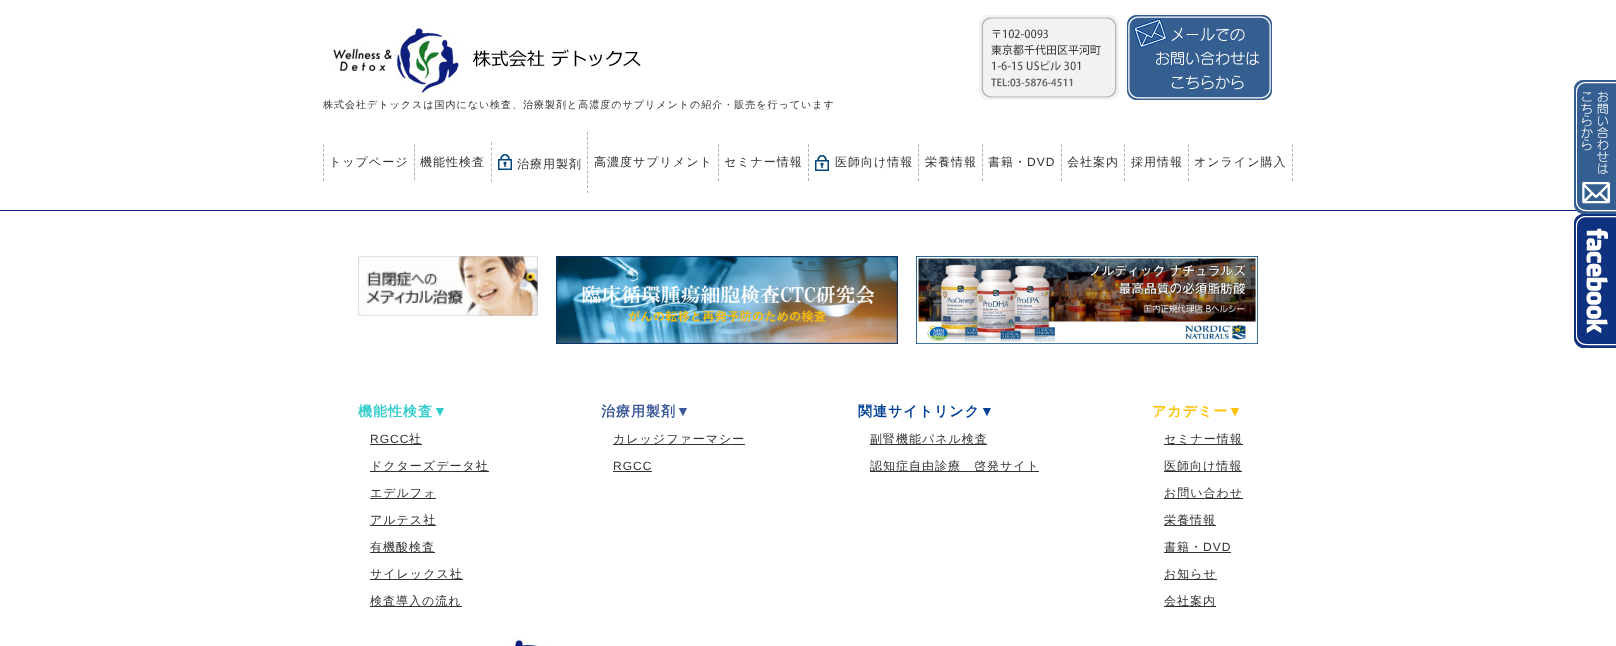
<svg xmlns="http://www.w3.org/2000/svg" width="1616" height="646">
<rect width="100%" height="100%" fill="#fff"/>
<image x="979" y="15" width="140" height="85" href="media/1.png"/>
<image x="1127" y="15" width="145" height="85" href="media/2.png"/>
<image x="332" y="25" width="309" height="72" href="media/3.png"/>
<text x="323" y="108" style="font-family:WenQuanYi Zen Hei;font-size:10px;font-weight:500;letter-spacing:1px;fill:#323232">株式会社デトックスは国内にない検査、治療製剤と高濃度のサプリメントの紹介・販売を行っています</text>
<rect y="210" width="1577" height="1" fill="#0f1f7e"/>
<image x="1574" y="80" width="42" height="134" href="media/4.png"/>
<image x="1574" y="214" width="42" height="134" href="media/5.png"/>
<path d="M323.5 144v37" fill="none" stroke="#b3b3b3" stroke-dasharray="3 1.86"/>
<text x="329" y="166" style="font-family:WenQuanYi Zen Hei;font-size:12px;font-weight:500;letter-spacing:1px;fill:#323232">トップページ</text>
<path d="M414.5 144v36" fill="none" stroke="#b3b3b3" stroke-dasharray="3 1.71"/>
<text x="420" y="166" style="font-family:WenQuanYi Zen Hei;font-size:12px;font-weight:500;letter-spacing:1px;fill:#323232">機能性検査</text>
<path d="M491.5 142v40" fill="none" stroke="#b3b3b3" stroke-dasharray="3 2.29"/>
<image x="498" y="154" width="14" height="16" href="media/6.png"/>
<text x="517" y="168" style="font-family:WenQuanYi Zen Hei;font-size:12px;font-weight:500;letter-spacing:1px;fill:#323232">治療用製剤</text>
<path d="M587.5 132v61" fill="none" stroke="#b3b3b3" stroke-dasharray="3 1.83"/>
<text x="594" y="166" style="font-family:WenQuanYi Zen Hei;font-size:12px;font-weight:500;letter-spacing:1px;fill:#323232">高濃度サプリメント</text>
<path d="M718.5 144v37" fill="none" stroke="#b3b3b3" stroke-dasharray="3 1.86"/>
<text x="724" y="166" style="font-family:WenQuanYi Zen Hei;font-size:12px;font-weight:500;letter-spacing:1px;fill:#323232">セミナー情報</text>
<path d="M808.5 144v37" fill="none" stroke="#b3b3b3" stroke-dasharray="3 1.86"/>
<image x="815" y="155" width="14" height="16" href="media/6.png"/>
<text x="835" y="166" style="font-family:WenQuanYi Zen Hei;font-size:12px;font-weight:500;letter-spacing:1px;fill:#323232">医師向け情報</text>
<path d="M918.5 144v37" fill="none" stroke="#b3b3b3" stroke-dasharray="3 1.86"/>
<text x="925" y="166" style="font-family:WenQuanYi Zen Hei;font-size:12px;font-weight:500;letter-spacing:1px;fill:#323232">栄養情報</text>
<path d="M982.5 144v37" fill="none" stroke="#b3b3b3" stroke-dasharray="3 1.86"/>
<text x="988" y="166" style="font-family:WenQuanYi Zen Hei;font-size:12px;font-weight:500;letter-spacing:1px;fill:#323232">書籍・</text>
<text x="1027" y="166" style="font-family:Liberation Sans;font-size:12px;letter-spacing:1px;fill:#323232">DVD</text>
<path d="M1061.5 144v37" fill="none" stroke="#b3b3b3" stroke-dasharray="3 1.86"/>
<text x="1067" y="166" style="font-family:WenQuanYi Zen Hei;font-size:12px;font-weight:500;letter-spacing:1px;fill:#323232">会社案内</text>
<path d="M1124.5 144v37" fill="none" stroke="#b3b3b3" stroke-dasharray="3 1.86"/>
<text x="1131" y="166" style="font-family:WenQuanYi Zen Hei;font-size:12px;font-weight:500;letter-spacing:1px;fill:#323232">採用情報</text>
<path d="M1292.5 144v37" fill="none" stroke="#b3b3b3" stroke-dasharray="3 1.86"/>
<path d="M1188.5 144v37" fill="none" stroke="#b3b3b3" stroke-dasharray="3 1.86"/>
<text x="1194" y="166" style="font-family:WenQuanYi Zen Hei;font-size:12px;font-weight:500;letter-spacing:1px;fill:#323232">オンライン購入</text>
<image x="358" y="256" width="180" height="60" href="media/7.png"/>
<image x="556" y="256" width="342" height="88" href="media/8.png"/>
<image x="916" y="256" width="342" height="88" href="media/9.png"/>
<text x="358" y="416" style="font-family:WenQuanYi Zen Hei;font-size:14px;font-weight:bold;letter-spacing:1px;fill:#3cc">機能性検査</text>
<text x="433" y="416" style="font-family:Liberation Sans;font-size:14px;font-weight:bold;letter-spacing:1px;fill:#3cc">▼</text>
<text x="370" y="443" style="font-family:Liberation Sans;font-size:12px;letter-spacing:1px;fill:#323232">RGCC</text>
<rect x="370" y="444" width="52" height="1" fill="#323232"/>
<text x="409" y="443" style="font-family:WenQuanYi Zen Hei;font-size:12px;font-weight:500;letter-spacing:1px;fill:#323232">社</text>
<rect x="370" y="471" width="119" height="1" fill="#323232"/>
<text x="370" y="470" style="font-family:WenQuanYi Zen Hei;font-size:12px;font-weight:500;letter-spacing:1px;fill:#323232">ドクターズデータ社</text>
<rect x="370" y="498" width="66" height="1" fill="#323232"/>
<text x="370" y="497" style="font-family:WenQuanYi Zen Hei;font-size:12px;font-weight:500;letter-spacing:1px;fill:#323232">エデルフォ</text>
<rect x="370" y="525" width="66" height="1" fill="#323232"/>
<text x="370" y="524" style="font-family:WenQuanYi Zen Hei;font-size:12px;font-weight:500;letter-spacing:1px;fill:#323232">アルテス社</text>
<rect x="370" y="552" width="65" height="1" fill="#323232"/>
<text x="370" y="551" style="font-family:WenQuanYi Zen Hei;font-size:12px;font-weight:500;letter-spacing:1px;fill:#323232">有機酸検査</text>
<rect x="370" y="579" width="93" height="1" fill="#323232"/>
<text x="370" y="578" style="font-family:WenQuanYi Zen Hei;font-size:12px;font-weight:500;letter-spacing:1px;fill:#323232">サイレックス社</text>
<rect x="370" y="606" width="92" height="1" fill="#323232"/>
<text x="370" y="605" style="font-family:WenQuanYi Zen Hei;font-size:12px;font-weight:500;letter-spacing:1px;fill:#323232">検査導入の流れ</text>
<text x="601" y="416" style="font-family:WenQuanYi Zen Hei;font-size:14px;font-weight:bold;letter-spacing:1px;fill:#3b5998">治療用製剤</text>
<text x="676" y="416" style="font-family:Liberation Sans;font-size:14px;font-weight:bold;letter-spacing:1px;fill:#3b5998">▼</text>
<rect x="613" y="444" width="132" height="1" fill="#323232"/>
<text x="613" y="443" style="font-family:WenQuanYi Zen Hei;font-size:12px;font-weight:500;letter-spacing:1px;fill:#323232">カレッジファーマシー</text>
<text x="613" y="470" style="font-family:Liberation Sans;font-size:12px;letter-spacing:1px;fill:#323232">RGCC</text>
<rect x="613" y="471" width="39" height="1" fill="#323232"/>
<text x="858" y="416" style="font-family:WenQuanYi Zen Hei;font-size:14px;font-weight:bold;letter-spacing:1px;fill:#004097">関連サイトリンク</text>
<text x="980" y="416" style="font-family:Liberation Sans;font-size:14px;font-weight:bold;letter-spacing:1px;fill:#004097">▼</text>
<rect x="870" y="444" width="117" height="1" fill="#323232"/>
<text x="870" y="443" style="font-family:WenQuanYi Zen Hei;font-size:12px;font-weight:500;letter-spacing:1px;fill:#323232">副腎機能パネル検査</text>
<rect x="870" y="471" width="169" height="1" fill="#323232"/>
<text x="870" y="470" style="font-family:WenQuanYi Zen Hei;font-size:12px;font-weight:500;letter-spacing:1px;fill:#323232">認知症自由診療　啓発サイト</text>
<text x="1152" y="416" style="font-family:WenQuanYi Zen Hei;font-size:14px;font-weight:bold;letter-spacing:1px;fill:#ffc000">アカデミー</text>
<text x="1228" y="416" style="font-family:Liberation Sans;font-size:14px;font-weight:bold;letter-spacing:1px;fill:#ffc000">▼</text>
<rect x="1164" y="444" width="79" height="1" fill="#323232"/>
<text x="1164" y="443" style="font-family:WenQuanYi Zen Hei;font-size:12px;font-weight:500;letter-spacing:1px;fill:#323232">セミナー情報</text>
<rect x="1164" y="471" width="78" height="1" fill="#323232"/>
<text x="1164" y="470" style="font-family:WenQuanYi Zen Hei;font-size:12px;font-weight:500;letter-spacing:1px;fill:#323232">医師向け情報</text>
<rect x="1164" y="498" width="79" height="1" fill="#323232"/>
<text x="1164" y="497" style="font-family:WenQuanYi Zen Hei;font-size:12px;font-weight:500;letter-spacing:1px;fill:#323232">お問い合わせ</text>
<rect x="1164" y="525" width="52" height="1" fill="#323232"/>
<text x="1164" y="524" style="font-family:WenQuanYi Zen Hei;font-size:12px;font-weight:500;letter-spacing:1px;fill:#323232">栄養情報</text>
<rect x="1164" y="552" width="67" height="1" fill="#323232"/>
<text x="1164" y="551" style="font-family:WenQuanYi Zen Hei;font-size:12px;font-weight:500;letter-spacing:1px;fill:#323232">書籍・</text>
<text x="1203" y="551" style="font-family:Liberation Sans;font-size:12px;letter-spacing:1px;fill:#323232">DVD</text>
<rect x="1164" y="579" width="53" height="1" fill="#323232"/>
<text x="1164" y="578" style="font-family:WenQuanYi Zen Hei;font-size:12px;font-weight:500;letter-spacing:1px;fill:#323232">お知らせ</text>
<rect x="1164" y="606" width="52" height="1" fill="#323232"/>
<text x="1164" y="605" style="font-family:WenQuanYi Zen Hei;font-size:12px;font-weight:500;letter-spacing:1px;fill:#323232">会社案内</text>
<image x="507" y="637" width="42" height="9" href="media/10.png"/>
</svg>
